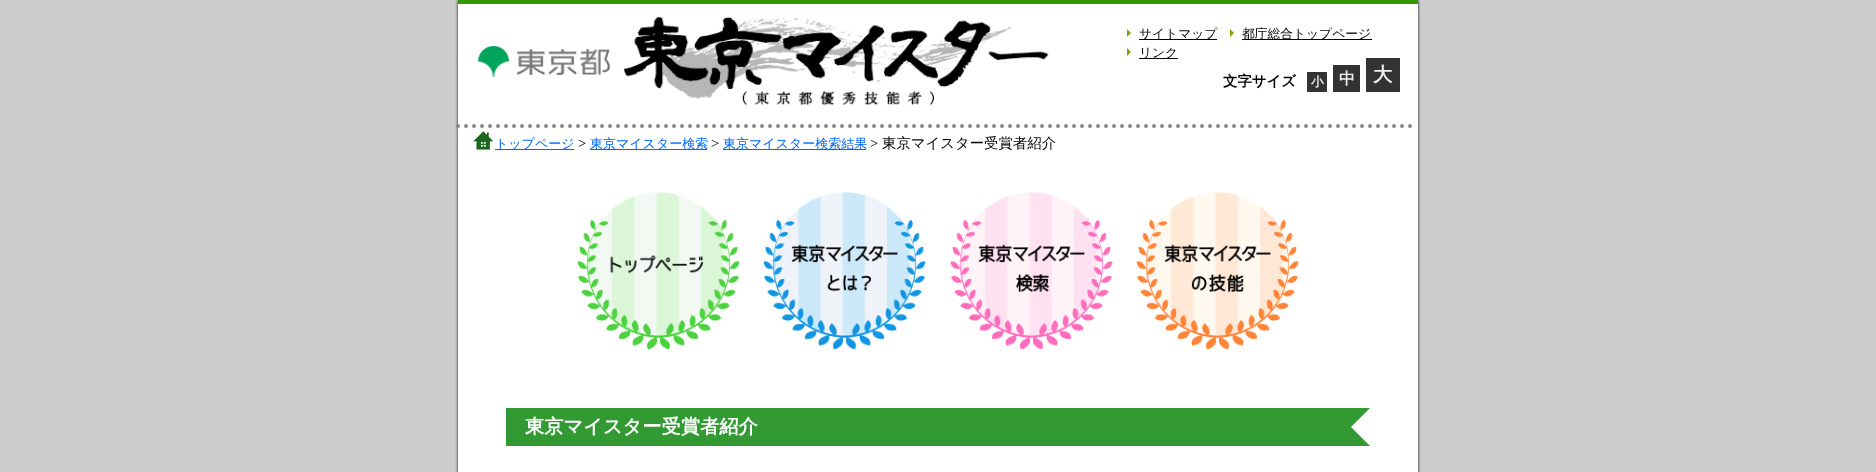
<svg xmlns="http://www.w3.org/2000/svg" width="1876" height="472">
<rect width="100%" height="100%" fill="#ccc"/>
<rect x="458" width="960" height="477" fill="#000" filter="blur(1.5px)"/>
<rect x="458" y="4" width="960" height="468" fill="#fff"/>
<rect x="458" width="960" height="4" fill="#390"/>
<path d="M458 126h960" fill="none" stroke="#888" stroke-width="4" stroke-linecap="round" stroke-dasharray="0 8"/>
<image x="478" y="46" width="132" height="31" href="media/1.png"/>
<image x="623" y="16" width="426" height="90" href="media/2.png"/>
<path d="M1127 37v-8l4 4z" fill="#7a0"/>
<rect x="1139" y="39" width="78" height="1" fill="#000"/>
<text x="1139" y="38" style="font-family:WenQuanYi Zen Hei;font-size:12.75px;font-weight:500;fill:#000">サイトマップ</text>
<path d="M1230 37v-8l4 4z" fill="#7a0"/>
<rect x="1242" y="39" width="130" height="1" fill="#000"/>
<text x="1242" y="38" style="font-family:WenQuanYi Zen Hei;font-size:12.75px;font-weight:500;fill:#000">都庁総合トップページ</text>
<path d="M1127 56v-8l4 4z" fill="#7a0"/>
<rect x="1139" y="58" width="39" height="1" fill="#000"/>
<text x="1139" y="57" style="font-family:WenQuanYi Zen Hei;font-size:12.75px;font-weight:500;fill:#000">リンク</text>
<text x="1223" y="86" style="font-family:WenQuanYi Zen Hei;font-size:14.4px;font-weight:bold;fill:#000">文字サイズ</text>
<rect x="1307" y="72" width="20" height="20" fill="#333"/>
<text x="1311" y="86" style="font-family:WenQuanYi Zen Hei;font-size:12.75px;font-weight:bold;fill:#eee">小</text>
<rect x="1333" y="65" width="27" height="27" fill="#333"/>
<text x="1339" y="84" style="font-family:WenQuanYi Zen Hei;font-size:16px;font-weight:bold;fill:#eee">中</text>
<rect x="1366" y="58" width="34" height="34" fill="#333"/>
<text x="1373" y="81" style="font-family:WenQuanYi Zen Hei;font-size:19.25px;font-weight:bold;fill:#eee">大</text>
<image x="473" y="131" width="20" height="19" href="media/3.png"/>
<rect x="495" y="149" width="79" height="1" fill="#06f"/>
<text x="495" y="148" style="font-family:WenQuanYi Zen Hei;font-size:13px;font-weight:500;fill:#06f">トップページ</text>
<text x="578" y="148" style="font-family:Liberation Serif;font-size:14.4px;fill:#000">&gt;</text>
<rect x="590" y="149" width="117" height="1" fill="#06f"/>
<text x="590" y="148" style="font-family:WenQuanYi Zen Hei;font-size:13px;font-weight:500;fill:#06f">東京マイスター検索</text>
<text x="711" y="148" style="font-family:Liberation Serif;font-size:14.4px;fill:#000">&gt;</text>
<rect x="723" y="149" width="143" height="1" fill="#06f"/>
<text x="723" y="148" style="font-family:WenQuanYi Zen Hei;font-size:13px;font-weight:500;fill:#06f">東京マイスター検索結果</text>
<text x="870" y="148" style="font-family:Liberation Serif;font-size:14.4px;fill:#000">&gt;</text>
<text x="882" y="148" style="font-family:WenQuanYi Zen Hei;font-size:14.4px;font-weight:500;fill:#000">東京マイスター受賞者紹介</text>
<image x="577" y="192" width="163" height="158" href="media/4.png"/>
<image x="763" y="192" width="163" height="158" href="media/5.png"/>
<image x="950" y="192" width="163" height="158" href="media/6.png"/>
<image x="1136" y="192" width="163" height="158" href="media/7.png"/>
<rect x="506" y="408" width="845" height="38" fill="#393"/>
<text x="525" y="433" style="font-family:WenQuanYi Zen Hei;font-size:19.25px;font-weight:bold;fill:#fff">東京マイスター受賞者紹介</text>
<path d="M1351 408h19l-19 19zm19 38h-19v-19z" fill="#393"/>
</svg>
